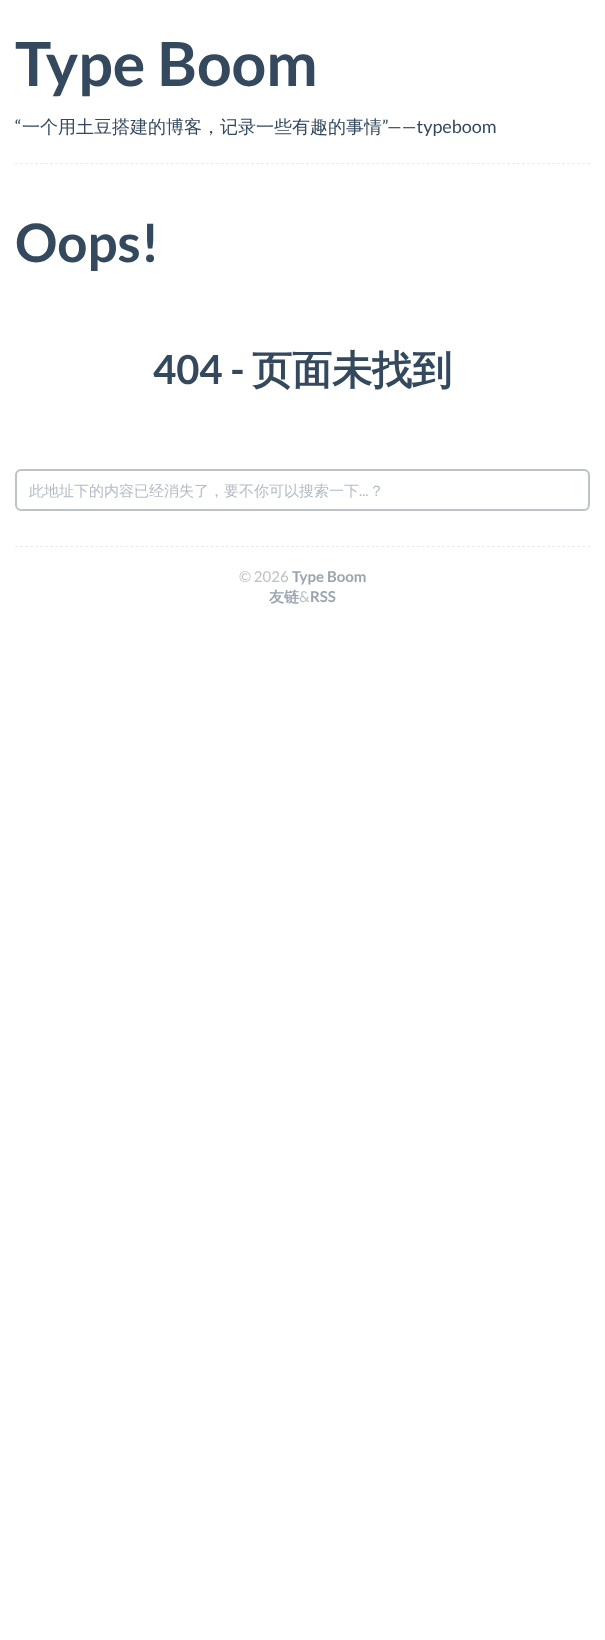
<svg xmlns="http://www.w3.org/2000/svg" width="605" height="1640">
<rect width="100%" height="100%" fill="#fff"/>
<text x="15" y="86" style="font-family:Lato;font-size:61px;font-weight:bold;fill:#34495e">Type Boom</text>
<text x="15" y="133" style="font-family:Lato;font-size:18px;fill:#34495e">“</text>
<text x="22" y="133" style="font-family:WenQuanYi Zen Hei;font-size:18px;font-weight:500;fill:#34495e">一个用土豆搭建的博客，记录一些有趣的事情</text>
<text x="382" y="133" style="font-family:Lato;font-size:18px;fill:#34495e">”——typeboom</text>
<path d="M15 163.5h575" fill="none" stroke="#e8ecee" stroke-dasharray="3 2.02"/>
<text x="15" y="262" style="font-family:Lato;font-size:53px;font-weight:bold;fill:#34495e">Oops!</text>
<text x="153" y="384" style="font-family:Lato;font-size:40px;font-weight:bold;fill:#34495e">404 -</text>
<text x="252" y="384" style="font-family:WenQuanYi Zen Hei;font-size:40px;font-weight:bold;fill:#34495e">页面未找到</text>
<rect x="16" y="470" width="573" height="40" rx="5" fill="none" stroke="#bdc3c7" stroke-width="2"/>
<text x="29" y="496" style="font-family:WenQuanYi Zen Hei;font-size:15px;font-weight:500;fill:#b2bcc5">此地址下的内容已经消失了，要不你可以搜索一下</text>
<text x="359" y="496" style="font-family:Lato;font-size:15px;fill:#b2bcc5">...</text>
<text x="369" y="496" style="font-family:WenQuanYi Zen Hei;font-size:15px;font-weight:500;fill:#b2bcc5">？</text>
<path d="M15 546.5h575" fill="none" stroke="#e8ecee" stroke-dasharray="3 2.02"/>
<text x="239" y="582" style="font-family:Lato;font-size:15px;fill:#bac1c8">© 2026</text>
<text x="292" y="582" style="font-family:Lato;font-size:15px;font-weight:bold;fill:#9aa4af">Type Boom</text>
<text x="269" y="602" style="font-family:WenQuanYi Zen Hei;font-size:15px;font-weight:bold;fill:#9aa4af">友链</text>
<text x="299" y="602" style="font-family:Lato;font-size:15px;fill:#bac1c8">&amp;</text>
<text x="310" y="602" style="font-family:Lato;font-size:15px;font-weight:bold;fill:#9aa4af">RSS</text>
</svg>
